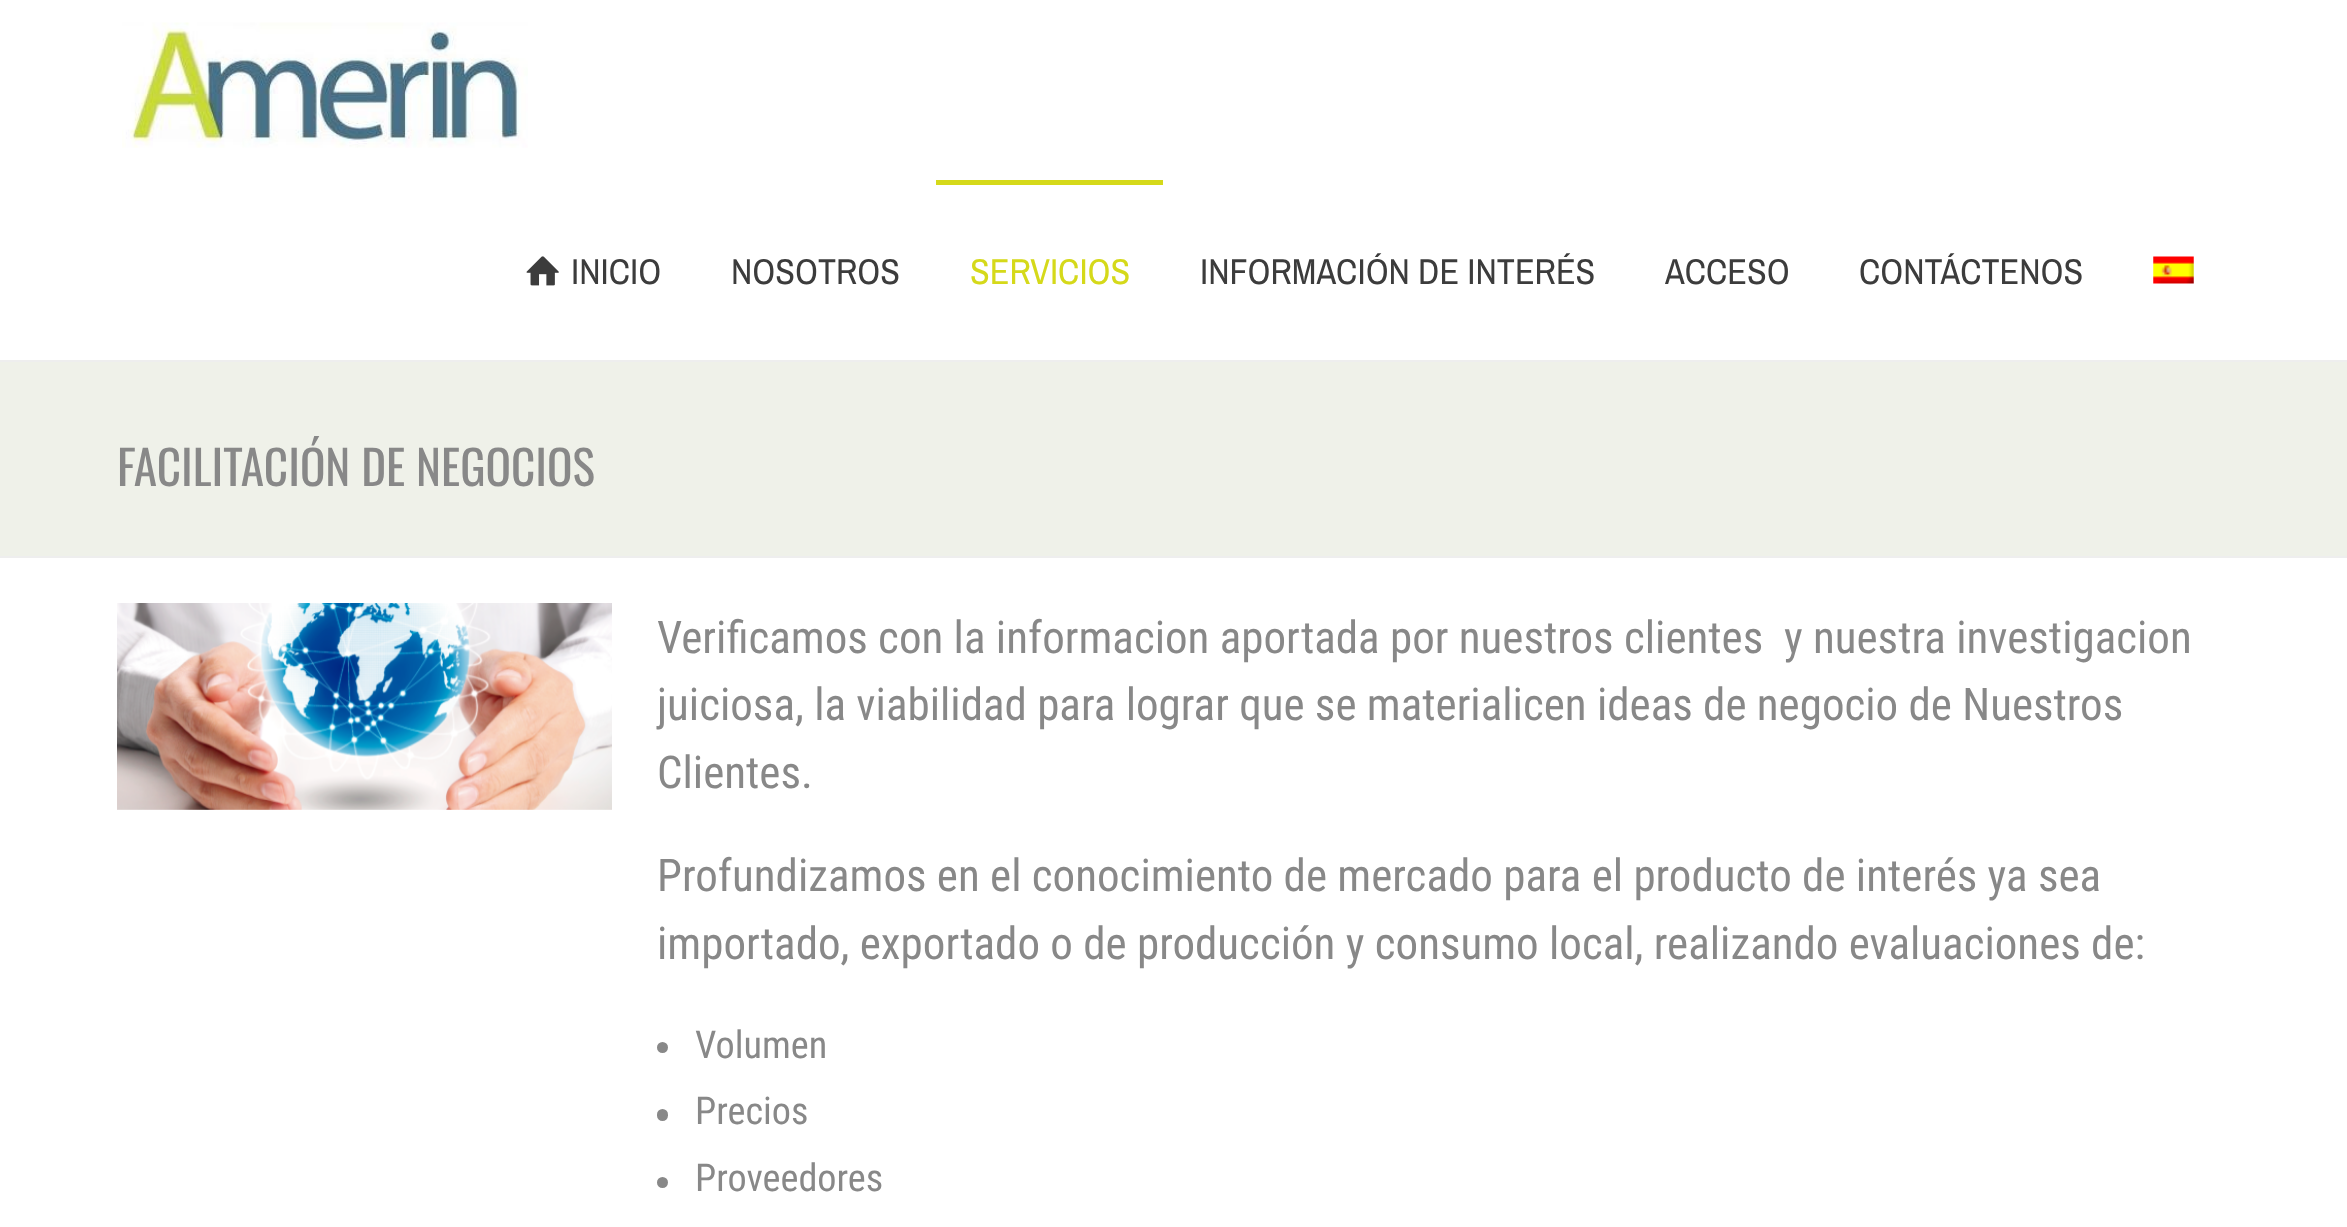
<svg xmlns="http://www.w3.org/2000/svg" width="2347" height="1227">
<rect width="100%" height="100%" fill="#fff"/>
<image x="122" y="22" width="406" height="126" href="media/1.png"/>
<image x="526" y="256" width="33" height="30" href="media/2.png"/>
<text x="571" y="284" style="font-family:Archivo Narrow;font-size:36px;fill:#3c3c3c">INICIO</text>
<text x="731" y="284" style="font-family:Archivo Narrow;font-size:36px;fill:#3c3c3c">NOSOTROS</text>
<rect x="936" y="180" width="227" height="5" fill="#d5d91a"/>
<text x="970" y="284" style="font-family:Archivo Narrow;font-size:36px;fill:#d5d91a">SERVICIOS</text>
<text x="1200" y="284" style="font-family:Archivo Narrow;font-size:36px;fill:#3c3c3c">INFORMACIÓN DE INTERÉS</text>
<text x="1665" y="284" style="font-family:Archivo Narrow;font-size:36px;fill:#3c3c3c">ACCESO</text>
<text x="1859" y="284" style="font-family:Archivo Narrow;font-size:36px;fill:#3c3c3c">CONTÁCTENOS</text>
<image x="2153" y="256" width="41" height="28" href="media/3.png"/>
<rect y="362" width="2347" height="194" fill="#eff1e9"/>
<rect y="360" width="2347" height="2" fill="#eee"/>
<rect y="556" width="2347" height="2" fill="#eee"/>
<text x="117" y="486" style="font-family:Oswald;font-size:47.25px;fill:#888">FACILITACIÓN DE NEGOCIOS</text>
<image x="117" y="603" width="495" height="207" href="media/4.png"/>
<text x="657" y="653" style="font-family:Roboto Condensed;font-size:45px;fill:#888" xml:space="preserve">Verificamos con la informacion aportada por nuestros clientes  y nuestra investigacion</text>
<text x="657" y="720" style="font-family:Roboto Condensed;font-size:45px;fill:#888">juiciosa, la viabilidad para lograr que se materialicen ideas de negocio de Nuestros</text>
<text x="657" y="788" style="font-family:Roboto Condensed;font-size:45px;fill:#888">Clientes.</text>
<text x="657" y="891" style="font-family:Roboto Condensed;font-size:45px;fill:#888">Profundizamos en el conocimiento de mercado para el producto de interés ya sea</text>
<text x="657" y="959" style="font-family:Roboto Condensed;font-size:45px;fill:#888">importado, exportado o de producción y consumo local, realizando evaluaciones de:</text>
<circle cx="662.5" cy="1047.5" r="5.5" fill="#888"/>
<text x="695" y="1058" style="font-family:Roboto Condensed;font-size:38.25px;fill:#888">Volumen</text>
<rect x="657" y="1109" width="11" height="12" rx="5.5" fill="#888"/>
<text x="695" y="1124" style="font-family:Roboto Condensed;font-size:38.25px;fill:#888">Precios</text>
<circle cx="662.5" cy="1182.5" r="5.5" fill="#888"/>
<text x="695" y="1191" style="font-family:Roboto Condensed;font-size:38.25px;fill:#888">Proveedores</text>
</svg>
